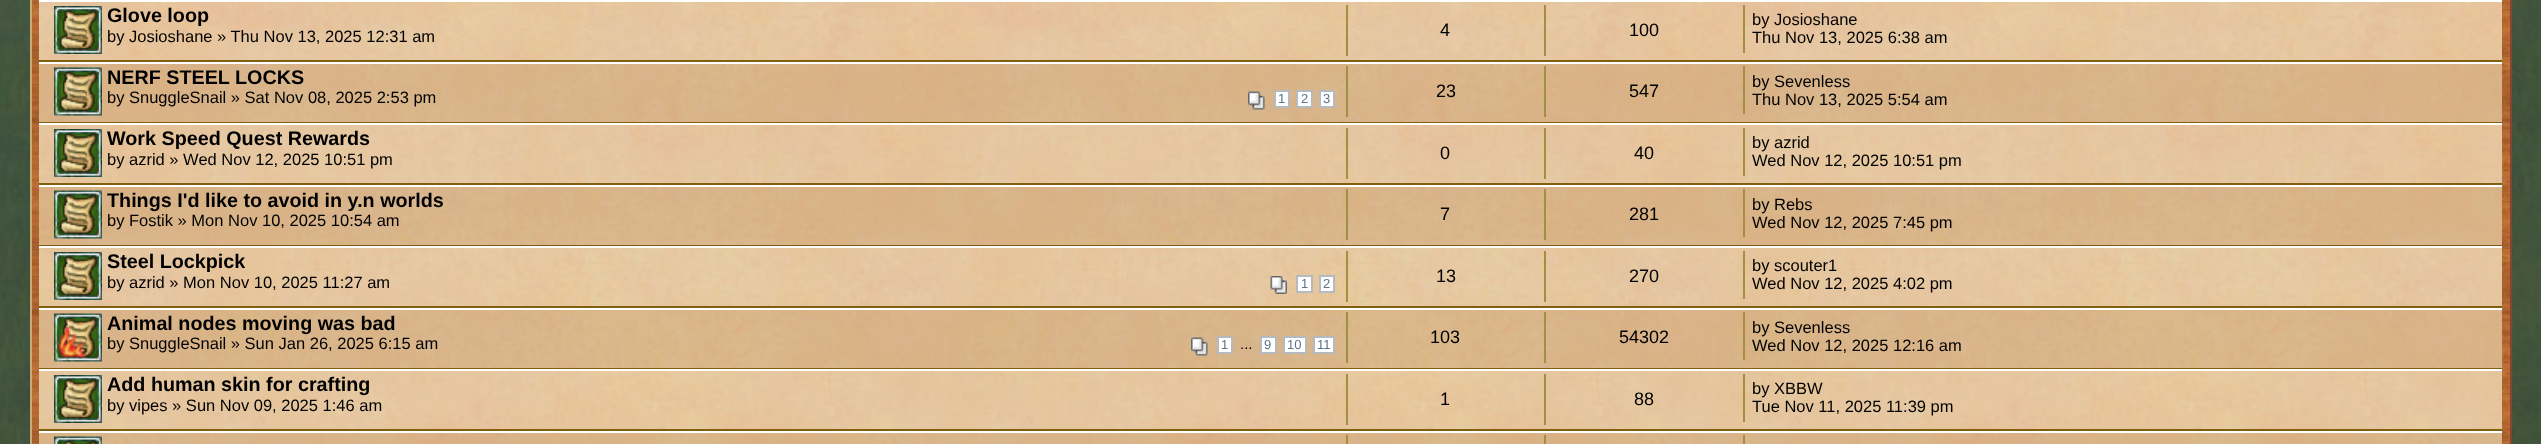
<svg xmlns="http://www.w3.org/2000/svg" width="2541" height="444">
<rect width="100%" height="100%" fill="#fff"/>
<image x="0" y="0" width="2541" height="444" href="media/1.png"/>
<image x="32" y="0" width="2478" height="444" href="media/2.png"/>
<rect x="2510" width="2" height="444" fill="#843"/>
<rect x="30" width="2" height="444" fill="#ca7"/>
<image x="39" y="2" width="2463" height="442" href="media/3.png"/>
<rect x="39" width="2463" height="2" fill="#fff"/>
<rect x="39" y="60" width="2463" height="2" fill="#806010"/>
<image x="54" y="6" width="48" height="48" href="media/4.png"/>
<text x="107" y="22" style="font-family:Liberation Sans;font-size:19.75px;font-weight:bold;fill:#000">Glove loop</text>
<text x="107" y="42" style="font-family:Liberation Sans;font-size:16.5px;fill:#000">by Josioshane » Thu Nov 13, 2025 12:31 am</text>
<rect x="1346" y="5" width="2" height="51" fill="#a09040"/>
<text x="1440" y="36" style="font-family:Liberation Sans;font-size:18px;fill:#000">4</text>
<rect x="1544" y="5" width="2" height="51" fill="#a09040"/>
<text x="1629" y="36" style="font-family:Liberation Sans;font-size:18px;fill:#000">100</text>
<rect x="1743" y="5" width="2" height="48" fill="#a09040"/>
<text x="1752" y="25" style="font-family:Liberation Sans;font-size:16.5px;fill:#000">by Josioshane</text>
<text x="1752" y="43" style="font-family:Liberation Sans;font-size:16.5px;fill:#000">Thu Nov 13, 2025 6:38 am</text>
<rect x="39" y="64" width="2463" height="58" fill="#96500f26"/>
<rect x="39" y="62" width="2463" height="2" fill="#fff"/>
<rect x="39" y="122" width="2463" height="1" fill="#806010"/>
<image x="54" y="67" width="48" height="49" href="media/5.png"/>
<text x="107" y="84" style="font-family:Liberation Sans;font-size:19.75px;font-weight:bold;fill:#000">NERF STEEL LOCKS</text>
<text x="107" y="103" style="font-family:Liberation Sans;font-size:16.5px;fill:#000">by SnuggleSnail » Sat Nov 08, 2025 2:53 pm</text>
<image x="1248" y="91" width="17" height="19" href="media/6.png"/>
<rect x="1275" y="91" width="14" height="16" fill="#fff" stroke="#b4bac0" stroke-width="2"/>
<text x="1278" y="103" style="font-family:Liberation Sans;font-size:13px;fill:#5c758c">1</text>
<rect x="1297" y="91" width="15" height="16" fill="#fff" stroke="#b4bac0" stroke-width="2"/>
<text x="1301" y="103" style="font-family:Liberation Sans;font-size:13px;fill:#5c758c">2</text>
<rect x="1320" y="91" width="14" height="16" fill="#fff" stroke="#b4bac0" stroke-width="2"/>
<text x="1323" y="103" style="font-family:Liberation Sans;font-size:13px;fill:#5c758c">3</text>
<rect x="1346" y="66" width="2" height="51" fill="#a09040"/>
<text x="1436" y="97" style="font-family:Liberation Sans;font-size:18px;fill:#000">23</text>
<rect x="1544" y="66" width="2" height="51" fill="#a09040"/>
<text x="1629" y="97" style="font-family:Liberation Sans;font-size:18px;fill:#000">547</text>
<rect x="1743" y="66" width="2" height="48" fill="#a09040"/>
<text x="1752" y="87" style="font-family:Liberation Sans;font-size:16.5px;fill:#000">by Sevenless</text>
<text x="1752" y="105" style="font-family:Liberation Sans;font-size:16.5px;fill:#000">Thu Nov 13, 2025 5:54 am</text>
<rect x="39" y="123" width="2463" height="2" fill="#fff"/>
<rect x="39" y="183" width="2463" height="2" fill="#806010"/>
<image x="54" y="129" width="48" height="48" href="media/4.png"/>
<text x="107" y="145" style="font-family:Liberation Sans;font-size:19.75px;font-weight:bold;fill:#000">Work Speed Quest Rewards</text>
<text x="107" y="165" style="font-family:Liberation Sans;font-size:16.5px;fill:#000">by azrid » Wed Nov 12, 2025 10:51 pm</text>
<rect x="1346" y="128" width="2" height="51" fill="#a09040"/>
<text x="1440" y="159" style="font-family:Liberation Sans;font-size:18px;fill:#000">0</text>
<rect x="1544" y="128" width="2" height="51" fill="#a09040"/>
<text x="1634" y="159" style="font-family:Liberation Sans;font-size:18px;fill:#000">40</text>
<rect x="1743" y="128" width="2" height="48" fill="#a09040"/>
<text x="1752" y="148" style="font-family:Liberation Sans;font-size:16.5px;fill:#000">by azrid</text>
<text x="1752" y="166" style="font-family:Liberation Sans;font-size:16.5px;fill:#000">Wed Nov 12, 2025 10:51 pm</text>
<rect x="39" y="187" width="2463" height="58" fill="#96500f26"/>
<rect x="39" y="185" width="2463" height="2" fill="#fff"/>
<rect x="39" y="245" width="2463" height="1" fill="#806010"/>
<image x="54" y="190" width="48" height="49" href="media/7.png"/>
<text x="107" y="207" style="font-family:Liberation Sans;font-size:19.75px;font-weight:bold;fill:#000">Things I'd like to avoid in y.n worlds</text>
<text x="107" y="226" style="font-family:Liberation Sans;font-size:16.5px;fill:#000">by Fostik » Mon Nov 10, 2025 10:54 am</text>
<rect x="1346" y="189" width="2" height="51" fill="#a09040"/>
<text x="1440" y="220" style="font-family:Liberation Sans;font-size:18px;fill:#000">7</text>
<rect x="1544" y="189" width="2" height="51" fill="#a09040"/>
<text x="1629" y="220" style="font-family:Liberation Sans;font-size:18px;fill:#000">281</text>
<rect x="1743" y="189" width="2" height="48" fill="#a09040"/>
<text x="1752" y="210" style="font-family:Liberation Sans;font-size:16.5px;fill:#000">by Rebs</text>
<text x="1752" y="228" style="font-family:Liberation Sans;font-size:16.5px;fill:#000">Wed Nov 12, 2025 7:45 pm</text>
<rect x="39" y="246" width="2463" height="2" fill="#fff"/>
<rect x="39" y="306" width="2463" height="2" fill="#806010"/>
<image x="54" y="252" width="48" height="48" href="media/4.png"/>
<text x="107" y="268" style="font-family:Liberation Sans;font-size:19.75px;font-weight:bold;fill:#000">Steel Lockpick</text>
<text x="107" y="288" style="font-family:Liberation Sans;font-size:16.5px;fill:#000">by azrid » Mon Nov 10, 2025 11:27 am</text>
<image x="1270" y="276" width="17" height="18" href="media/8.png"/>
<rect x="1297" y="276" width="15" height="16" fill="#fff" stroke="#b4bac0" stroke-width="2"/>
<text x="1301" y="288" style="font-family:Liberation Sans;font-size:13px;fill:#5c758c">1</text>
<rect x="1320" y="276" width="14" height="16" fill="#fff" stroke="#b4bac0" stroke-width="2"/>
<text x="1323" y="288" style="font-family:Liberation Sans;font-size:13px;fill:#5c758c">2</text>
<rect x="1346" y="251" width="2" height="51" fill="#a09040"/>
<text x="1436" y="282" style="font-family:Liberation Sans;font-size:18px;fill:#000">13</text>
<rect x="1544" y="251" width="2" height="51" fill="#a09040"/>
<text x="1629" y="282" style="font-family:Liberation Sans;font-size:18px;fill:#000">270</text>
<rect x="1743" y="251" width="2" height="48" fill="#a09040"/>
<text x="1752" y="271" style="font-family:Liberation Sans;font-size:16.5px;fill:#000">by scouter1</text>
<text x="1752" y="289" style="font-family:Liberation Sans;font-size:16.5px;fill:#000">Wed Nov 12, 2025 4:02 pm</text>
<rect x="39" y="310" width="2463" height="58" fill="#96500f26"/>
<rect x="39" y="308" width="2463" height="2" fill="#fff"/>
<rect x="39" y="368" width="2463" height="1" fill="#806010"/>
<image x="54" y="313" width="48" height="49" href="media/9.png"/>
<text x="107" y="330" style="font-family:Liberation Sans;font-size:19.75px;font-weight:bold;fill:#000">Animal nodes moving was bad</text>
<text x="107" y="349" style="font-family:Liberation Sans;font-size:16.5px;fill:#000">by SnuggleSnail » Sun Jan 26, 2025 6:15 am</text>
<image x="1191" y="337" width="17" height="19" href="media/10.png"/>
<rect x="1218" y="337" width="14" height="16" fill="#fff" stroke="#b4bac0" stroke-width="2"/>
<text x="1221" y="349" style="font-family:Liberation Sans;font-size:13px;fill:#5c758c">1</text>
<text x="1240" y="349" style="font-family:Liberation Sans;font-size:15px;fill:#000">...</text>
<rect x="1261" y="337" width="15" height="16" fill="#fff" stroke="#b4bac0" stroke-width="2"/>
<text x="1264" y="349" style="font-family:Liberation Sans;font-size:13px;fill:#5c758c">9</text>
<rect x="1284" y="337" width="22" height="16" fill="#fff" stroke="#b4bac0" stroke-width="2"/>
<text x="1287" y="349" style="font-family:Liberation Sans;font-size:13px;fill:#5c758c">10</text>
<rect x="1314" y="337" width="20" height="16" fill="#fff" stroke="#b4bac0" stroke-width="2"/>
<text x="1317" y="349" style="font-family:Liberation Sans;font-size:13px;fill:#5c758c">11</text>
<rect x="1346" y="312" width="2" height="51" fill="#a09040"/>
<text x="1430" y="343" style="font-family:Liberation Sans;font-size:18px;fill:#000">103</text>
<rect x="1544" y="312" width="2" height="51" fill="#a09040"/>
<text x="1619" y="343" style="font-family:Liberation Sans;font-size:18px;fill:#000">54302</text>
<rect x="1743" y="312" width="2" height="48" fill="#a09040"/>
<text x="1752" y="333" style="font-family:Liberation Sans;font-size:16.5px;fill:#000">by Sevenless</text>
<text x="1752" y="351" style="font-family:Liberation Sans;font-size:16.5px;fill:#000">Wed Nov 12, 2025 12:16 am</text>
<rect x="39" y="369" width="2463" height="2" fill="#fff"/>
<rect x="39" y="429" width="2463" height="2" fill="#806010"/>
<image x="54" y="375" width="48" height="48" href="media/4.png"/>
<text x="107" y="391" style="font-family:Liberation Sans;font-size:19.75px;font-weight:bold;fill:#000">Add human skin for crafting</text>
<text x="107" y="411" style="font-family:Liberation Sans;font-size:16.5px;fill:#000">by vipes » Sun Nov 09, 2025 1:46 am</text>
<rect x="1346" y="374" width="2" height="51" fill="#a09040"/>
<text x="1440" y="405" style="font-family:Liberation Sans;font-size:18px;fill:#000">1</text>
<rect x="1544" y="374" width="2" height="51" fill="#a09040"/>
<text x="1634" y="405" style="font-family:Liberation Sans;font-size:18px;fill:#000">88</text>
<rect x="1743" y="374" width="2" height="48" fill="#a09040"/>
<text x="1752" y="394" style="font-family:Liberation Sans;font-size:16.5px;fill:#000">by XBBW</text>
<text x="1752" y="412" style="font-family:Liberation Sans;font-size:16.5px;fill:#000">Tue Nov 11, 2025 11:39 pm</text>
<rect x="39" y="433" width="2463" height="11" fill="#96500f26"/>
<rect x="39" y="431" width="2463" height="2" fill="#fff"/>
<image x="54" y="436" width="48" height="8" href="media/11.png"/>
<rect x="1346" y="435" width="2" height="9" fill="#a09040"/>
<rect x="1544" y="435" width="2" height="9" fill="#a09040"/>
<rect x="1743" y="435" width="2" height="9" fill="#a09040"/>
</svg>
